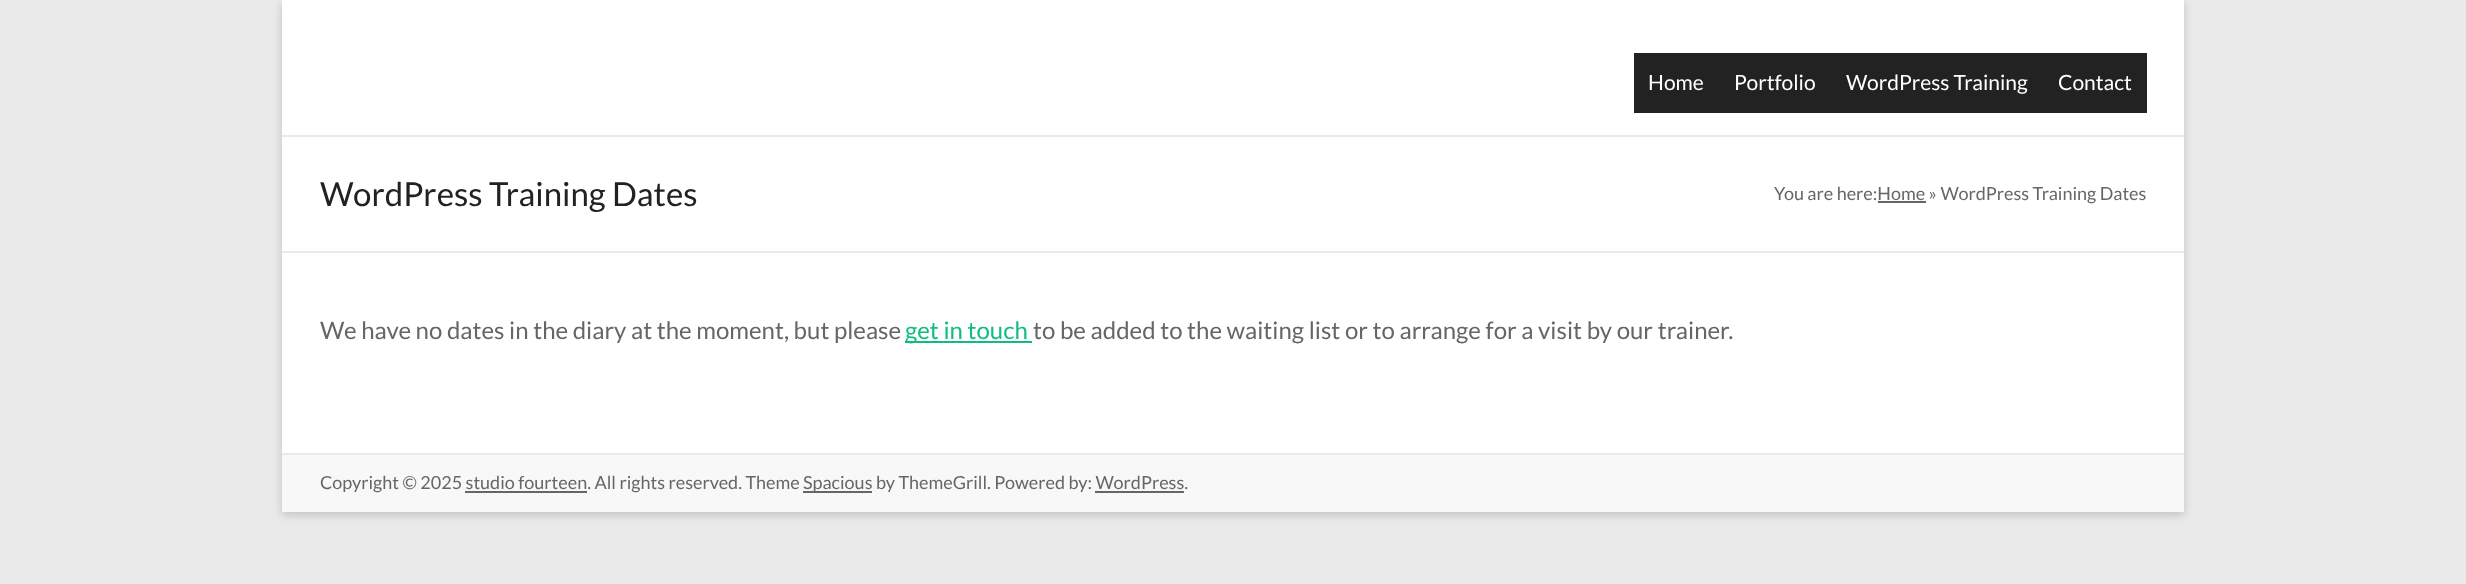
<svg xmlns="http://www.w3.org/2000/svg" width="2466" height="584">
<rect width="100%" height="100%" fill="#eaeaea"/>
<rect x="282" y="3" width="1902" height="512" fill="#6464644d" filter="blur(4.5px)"/>
<rect x="282" width="1902" height="453" fill="#fff"/>
<rect x="282" y="135" width="1902" height="2" fill="#eaeaea"/>
<rect x="1634" y="53" width="513" height="60" fill="#222"/>
<text x="1648" y="90" style="font-family:Lato;font-size:21px;fill:#fff">Home</text>
<text x="1734" y="90" style="font-family:Lato;font-size:21px;fill:#fff">Portfolio</text>
<text x="1846" y="90" style="font-family:Lato;font-size:21px;fill:#fff">WordPress Training</text>
<text x="2058" y="90" style="font-family:Lato;font-size:21px;fill:#fff">Contact</text>
<rect x="282" y="251" width="1902" height="2" fill="#eaeaea"/>
<text x="320" y="206" style="font-family:Lato;font-size:33px;fill:#222">WordPress Training Dates</text>
<text x="1774" y="200" style="font-family:Lato;font-size:18px;fill:#666">You are here:Home » WordPress Training Dates</text>
<rect x="1878" y="201" width="48" height="2" fill="#666"/>
<text x="320" y="339" style="font-family:Lato;font-size:24px;fill:#666">We have no dates in the diary at the moment, but please</text>
<rect x="905" y="341" width="127" height="2" fill="#0fbe7c"/>
<text x="905" y="339" style="font-family:Lato;font-size:24px;fill:#0fbe7c">get in touch</text>
<text x="1033" y="339" style="font-family:Lato;font-size:24px;fill:#666">to be added to the waiting list or to arrange for a visit by our trainer.</text>
<rect x="282" y="455" width="1902" height="57" fill="#f8f8f8"/>
<rect x="282" y="453" width="1902" height="2" fill="#eaeaea"/>
<text x="320" y="489" style="font-family:Lato;font-size:18px;fill:#666">Copyright © 2025 studio fourteen. All rights reserved. Theme</text>
<rect x="803" y="491" width="69" height="2" fill="#666"/>
<text x="803" y="489" style="font-family:Lato;font-size:18px;fill:#666">Spacious by ThemeGrill. Powered by: WordPress.</text>
<rect x="465" y="491" width="122" height="2" fill="#666"/>
<rect x="1095" y="491" width="89" height="2" fill="#666"/>
</svg>
